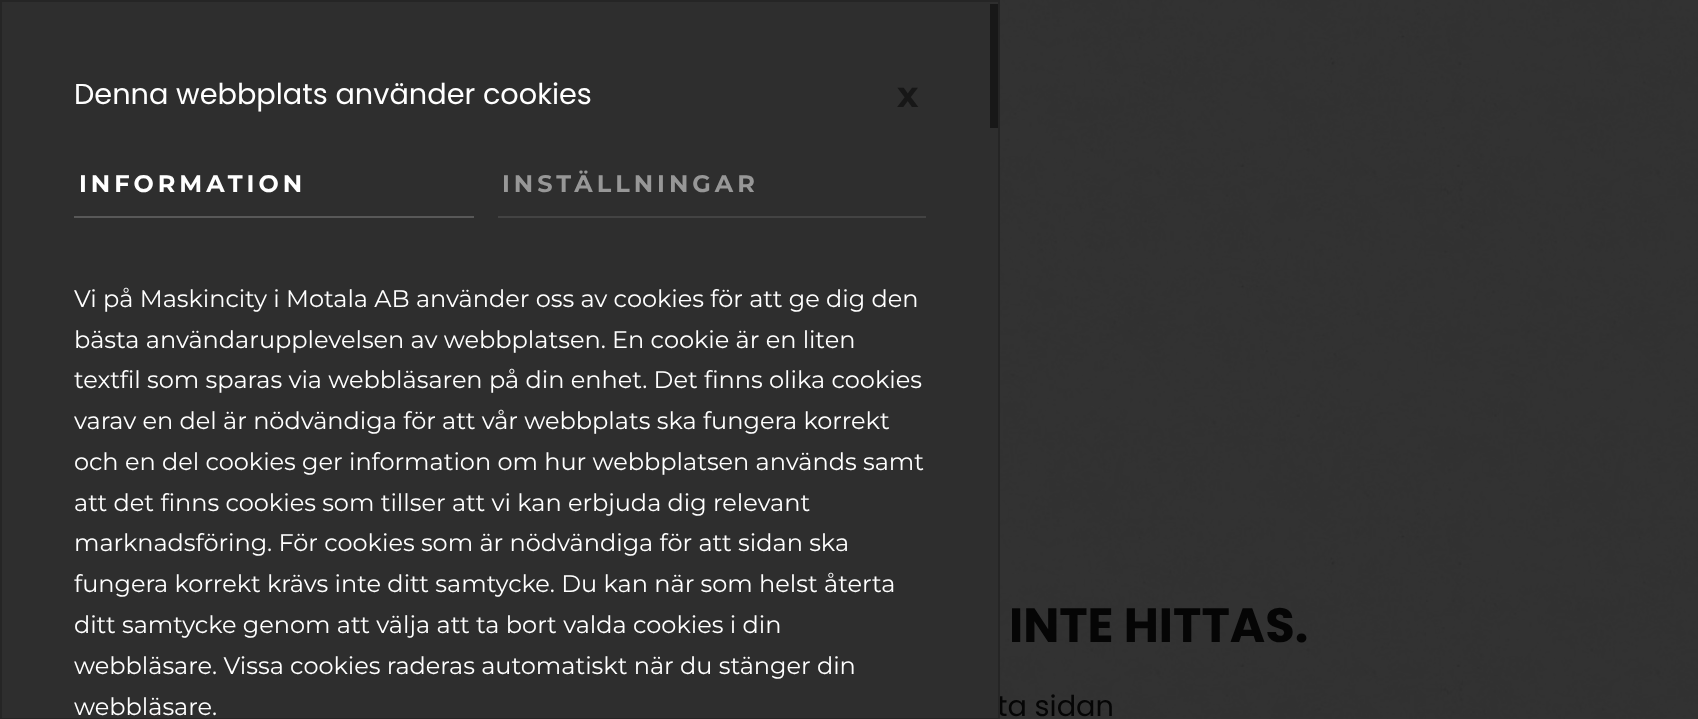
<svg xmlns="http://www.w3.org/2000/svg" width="1698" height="719">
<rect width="100%" height="100%" fill="#fff"/>
<image x="1000" y="0" width="698" height="719" href="media/1.png"/>
<text x="997" y="716" style="font-family:Poppins;font-size:28.75px;fill:#050505">ta sidan</text>
<rect x="1" y="1" width="998" height="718" fill="#2e2e2e" stroke="#252525" stroke-width="2"/>
<rect x="990" y="4" width="8" height="124" fill="#181818"/>
<text x="74" y="104" style="font-family:Poppins;font-size:28.75px;fill:#fff">Denna webbplats använder cookies</text>
<text x="897" y="107" style="font-family:Montserrat;font-size:36px;font-weight:bold;fill:#171717">x</text>
<rect x="74" y="216" width="400" height="2" fill="#585858"/>
<text x="79" y="192" style="font-family:Montserrat;font-size:24px;font-weight:bold;letter-spacing:4px;fill:#fff">INFORMATION</text>
<rect x="498" y="216" width="428" height="2" fill="#434343"/>
<text x="502" y="192" style="font-family:Montserrat;font-size:24px;font-weight:bold;letter-spacing:4px;fill:#979797">INSTÄLLNINGAR</text>
<text x="74" y="307" style="font-family:Montserrat;font-size:24px;fill:#fff">Vi på Maskincity i Motala AB använder oss av cookies för att ge dig den</text>
<text x="74" y="348" style="font-family:Montserrat;font-size:24px;fill:#fff">bästa användarupplevelsen av webbplatsen. En cookie är en liten</text>
<text x="74" y="388" style="font-family:Montserrat;font-size:24px;fill:#fff">textfil som sparas via webbläsaren på din enhet. Det finns olika cookies</text>
<text x="74" y="429" style="font-family:Montserrat;font-size:24px;fill:#fff">varav en del är nödvändiga för att vår webbplats ska fungera korrekt</text>
<text x="74" y="470" style="font-family:Montserrat;font-size:24px;fill:#fff">och en del cookies ger information om hur webbplatsen används samt</text>
<text x="74" y="511" style="font-family:Montserrat;font-size:24px;fill:#fff">att det finns cookies som tillser att vi kan erbjuda dig relevant</text>
<text x="74" y="551" style="font-family:Montserrat;font-size:24px;fill:#fff">marknadsföring. För cookies som är nödvändiga för att sidan ska</text>
<text x="74" y="592" style="font-family:Montserrat;font-size:24px;fill:#fff">fungera korrekt krävs inte ditt samtycke. Du kan när som helst återta</text>
<text x="74" y="633" style="font-family:Montserrat;font-size:24px;fill:#fff">ditt samtycke genom att välja att ta bort valda cookies i din</text>
<text x="74" y="674" style="font-family:Montserrat;font-size:24px;fill:#fff">webbläsare. Vissa cookies raderas automatiskt när du stänger din</text>
<text x="74" y="715" style="font-family:Montserrat;font-size:24px;fill:#fff">webbläsare.</text>
<text x="1009" y="642" style="font-family:Poppins;font-size:48px;font-weight:bold;fill:#050505">INTE HITTAS.</text>
</svg>
